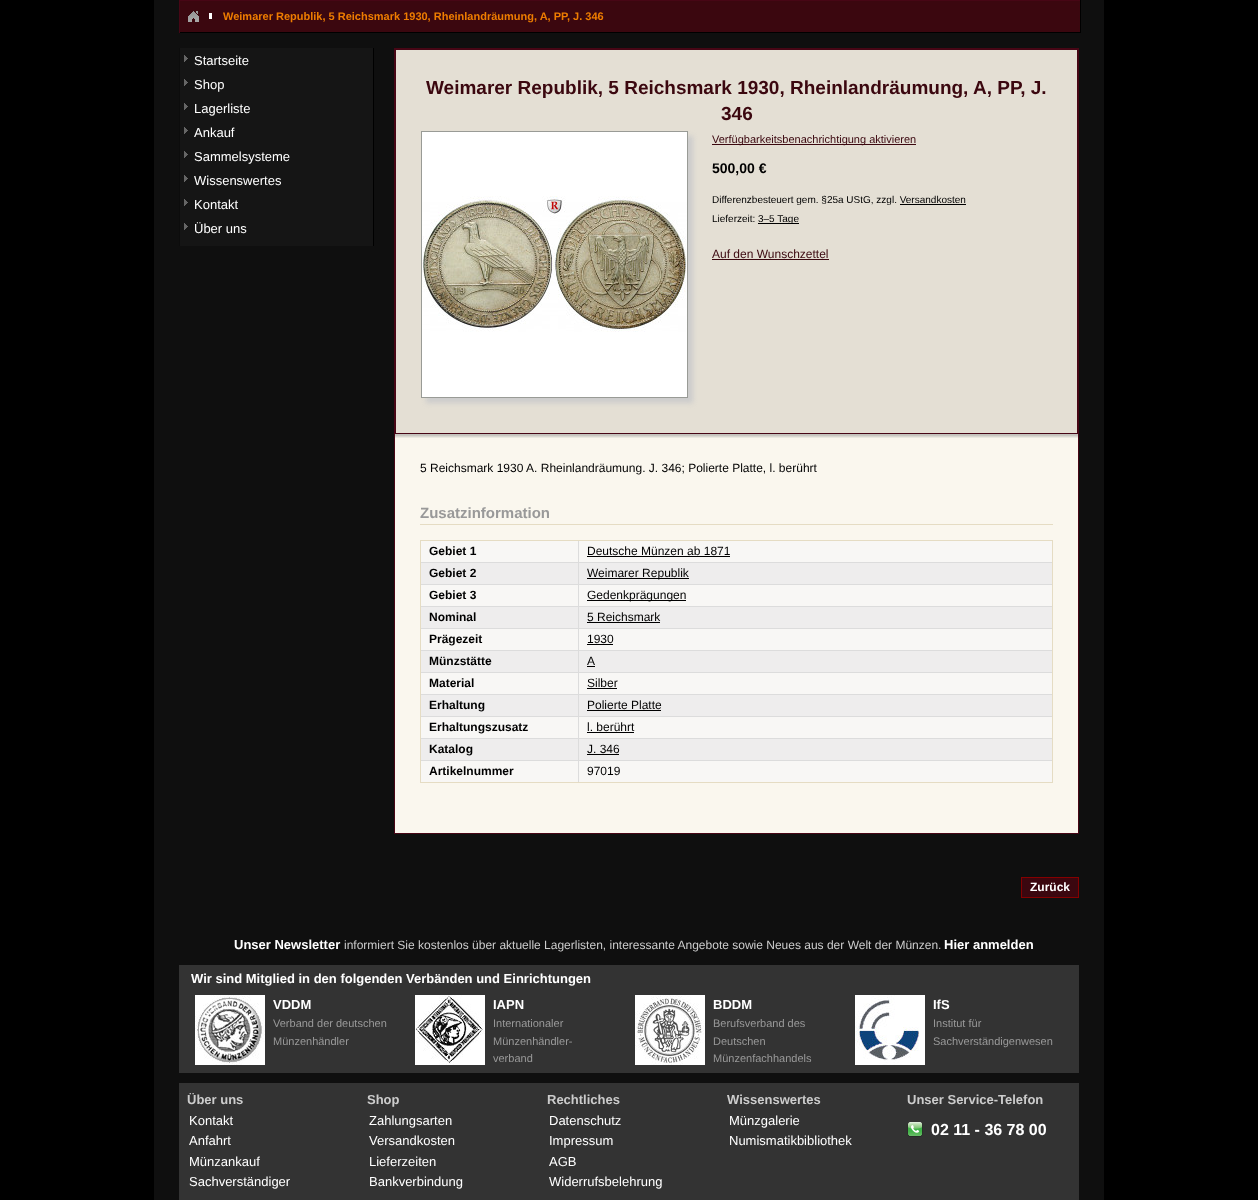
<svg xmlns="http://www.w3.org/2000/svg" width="1258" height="1200">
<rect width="100%" height="100%" fill="#000"/>
<rect x="154" width="950" height="1200" fill="#0f0f0f"/>
<rect x="180" y="1" width="900" height="31" fill="#3b070f"/>
<rect x="179" width="902" height="1" fill="#470615"/>
<rect x="1080" width="1" height="33" fill="#000"/>
<rect x="179" y="32" width="902" height="1" fill="#000"/>
<rect x="179" width="1" height="33" fill="#470615"/>
<image x="188" y="11" width="11" height="11" href="media/1.png"/>
<rect x="209" y="13" width="3" height="6" fill="#fff"/>
<text x="223" y="20" style="font-family:Liberation Sans;font-size:11px;font-weight:bold;fill:#ee7d00">Weimarer Republik, 5 Reichsmark 1930, Rheinlandräumung, A, PP, J. 346</text>
<rect x="180" y="48" width="193" height="198" fill="#151515"/>
<rect x="373" y="48" width="1" height="198" fill="#000"/>
<rect x="179" y="48" width="1" height="198" fill="#0c0c0c"/>
<image x="184" y="55" width="4" height="7" href="media/2.png"/>
<text x="194" y="65" style="font-family:Liberation Sans;font-size:13px;fill:#fff">Startseite</text>
<image x="184" y="79" width="4" height="7" href="media/2.png"/>
<text x="194" y="89" style="font-family:Liberation Sans;font-size:13px;fill:#fff">Shop</text>
<image x="184" y="103" width="4" height="7" href="media/2.png"/>
<text x="194" y="113" style="font-family:Liberation Sans;font-size:13px;fill:#fff">Lagerliste</text>
<image x="184" y="127" width="4" height="7" href="media/2.png"/>
<text x="194" y="137" style="font-family:Liberation Sans;font-size:13px;fill:#fff">Ankauf</text>
<image x="184" y="151" width="4" height="7" href="media/2.png"/>
<text x="194" y="161" style="font-family:Liberation Sans;font-size:13px;fill:#fff">Sammelsysteme</text>
<image x="184" y="175" width="4" height="7" href="media/2.png"/>
<text x="194" y="185" style="font-family:Liberation Sans;font-size:13px;fill:#fff">Wissenswertes</text>
<image x="184" y="199" width="4" height="7" href="media/2.png"/>
<text x="194" y="209" style="font-family:Liberation Sans;font-size:13px;fill:#fff">Kontakt</text>
<image x="184" y="223" width="4" height="7" href="media/2.png"/>
<text x="194" y="233" style="font-family:Liberation Sans;font-size:13px;fill:#fff">Über uns</text>
<rect x="396" y="50" width="681" height="383" fill="#e4dfd4"/>
<rect x="394.5" y="48.5" width="684" height="785" fill="none" stroke="#470615"/>
<rect x="395.5" y="49.5" width="682" height="384" fill="none" stroke="#470615"/>
<text x="426" y="94" style="font-family:Liberation Sans;font-size:19px;font-weight:bold;fill:#3b070f">Weimarer Republik, 5 Reichsmark 1930, Rheinlandräumung, A, PP, J.</text>
<text x="721" y="120" style="font-family:Liberation Sans;font-size:19px;font-weight:bold;fill:#3b070f">346</text>
<rect x="426" y="136" width="267" height="267" fill="#ccc" filter="blur(2.5px)"/>
<rect x="421.5" y="131.5" width="266" height="266" fill="none" stroke="#999b96"/>
<image x="422" y="132" width="265" height="265" href="media/3.png"/>
<rect x="712" y="144" width="204" height="1" fill="#3b070f"/>
<text x="712" y="143" style="font-family:Liberation Sans;font-size:11px;fill:#3b070f">Verfügbarkeitsbenachrichtigung aktivieren</text>
<text x="712" y="173" style="font-family:Liberation Sans;font-size:14px;font-weight:bold;fill:#000">500,00 €</text>
<text x="712" y="203" style="font-family:Liberation Sans;font-size:10px;fill:#000">Differenzbesteuert gem. §25a UStG, zzgl. Versandkosten</text>
<rect x="900" y="204" width="66" height="1" fill="#000"/>
<text x="712" y="222" style="font-family:Liberation Sans;font-size:10px;fill:#000">Lieferzeit:</text>
<rect x="758" y="223" width="41" height="1" fill="#000"/>
<text x="758" y="222" style="font-family:Liberation Sans;font-size:10px;fill:#000">3–5 Tage</text>
<text x="712" y="258" style="font-family:Liberation Sans;font-size:12px;fill:#3b070f">Auf den Wunschzettel</text>
<rect x="712" y="259" width="117" height="1" fill="#3b070f"/>
<rect x="395" y="438" width="683" height="395" fill="#faf7ee"/>
<image x="395" y="434" width="683" height="4" href="media/4.png"/>
<text x="420" y="472" style="font-family:Liberation Sans;font-size:12px;fill:#000">5 Reichsmark 1930 A. Rheinlandräumung. J. 346; Polierte Platte, l. berührt</text>
<rect x="420" y="524" width="633" height="1" fill="#e5dcc3"/>
<text x="420" y="518" style="font-family:Liberation Sans;font-size:15px;font-weight:bold;fill:#999">Zusatzinformation</text>
<rect x="420.5" y="540.5" width="632" height="242" fill="#f8f7f5" stroke="#e5dcc3"/>
<rect x="578" y="541" width="1" height="22" fill="#dcdcdc"/>
<rect x="421" y="562" width="631" height="1" fill="#dcdcdc"/>
<text x="429" y="555" style="font-family:Liberation Sans;font-size:12px;font-weight:bold;fill:#000">Gebiet 1</text>
<text x="587" y="555" style="font-family:Liberation Sans;font-size:12px;fill:#000">Deutsche Münzen ab 1871</text>
<rect x="587" y="556" width="143" height="1" fill="#000"/>
<rect x="421" y="563" width="631" height="21" fill="#eeeded"/>
<rect x="578" y="563" width="1" height="44" fill="#dcdcdc"/>
<rect x="421" y="584" width="631" height="1" fill="#dcdcdc"/>
<text x="429" y="577" style="font-family:Liberation Sans;font-size:12px;font-weight:bold;fill:#000">Gebiet 2</text>
<rect x="587" y="578" width="102" height="1" fill="#000"/>
<text x="587" y="577" style="font-family:Liberation Sans;font-size:12px;fill:#000">Weimarer Republik</text>
<rect x="421" y="606" width="631" height="1" fill="#dcdcdc"/>
<text x="429" y="599" style="font-family:Liberation Sans;font-size:12px;font-weight:bold;fill:#000">Gebiet 3</text>
<rect x="587" y="600" width="99" height="1" fill="#000"/>
<text x="587" y="599" style="font-family:Liberation Sans;font-size:12px;fill:#000">Gedenkprägungen</text>
<rect x="421" y="607" width="631" height="21" fill="#eeeded"/>
<rect x="578" y="607" width="1" height="44" fill="#dcdcdc"/>
<rect x="421" y="628" width="631" height="1" fill="#dcdcdc"/>
<text x="429" y="621" style="font-family:Liberation Sans;font-size:12px;font-weight:bold;fill:#000">Nominal</text>
<text x="587" y="621" style="font-family:Liberation Sans;font-size:12px;fill:#000">5 Reichsmark</text>
<rect x="587" y="622" width="73" height="1" fill="#000"/>
<rect x="421" y="650" width="631" height="1" fill="#dcdcdc"/>
<text x="429" y="643" style="font-family:Liberation Sans;font-size:12px;font-weight:bold;fill:#000">Prägezeit</text>
<text x="587" y="643" style="font-family:Liberation Sans;font-size:12px;fill:#000">1930</text>
<rect x="587" y="644" width="26" height="1" fill="#000"/>
<rect x="421" y="651" width="631" height="21" fill="#eeeded"/>
<rect x="578" y="651" width="1" height="44" fill="#dcdcdc"/>
<rect x="421" y="672" width="631" height="1" fill="#dcdcdc"/>
<text x="429" y="665" style="font-family:Liberation Sans;font-size:12px;font-weight:bold;fill:#000">Münzstätte</text>
<text x="587" y="665" style="font-family:Liberation Sans;font-size:12px;fill:#000">A</text>
<rect x="587" y="666" width="8" height="1" fill="#000"/>
<rect x="421" y="694" width="631" height="1" fill="#dcdcdc"/>
<text x="429" y="687" style="font-family:Liberation Sans;font-size:12px;font-weight:bold;fill:#000">Material</text>
<text x="587" y="687" style="font-family:Liberation Sans;font-size:12px;fill:#000">Silber</text>
<rect x="587" y="688" width="30" height="1" fill="#000"/>
<rect x="421" y="695" width="631" height="21" fill="#eeeded"/>
<rect x="578" y="695" width="1" height="44" fill="#dcdcdc"/>
<rect x="421" y="716" width="631" height="1" fill="#dcdcdc"/>
<text x="429" y="709" style="font-family:Liberation Sans;font-size:12px;font-weight:bold;fill:#000">Erhaltung</text>
<text x="587" y="709" style="font-family:Liberation Sans;font-size:12px;fill:#000">Polierte Platte</text>
<rect x="587" y="710" width="74" height="1" fill="#000"/>
<rect x="421" y="738" width="631" height="1" fill="#dcdcdc"/>
<text x="429" y="731" style="font-family:Liberation Sans;font-size:12px;font-weight:bold;fill:#000">Erhaltungszusatz</text>
<text x="587" y="731" style="font-family:Liberation Sans;font-size:12px;fill:#000">l. berührt</text>
<rect x="587" y="732" width="47" height="1" fill="#000"/>
<rect x="421" y="739" width="631" height="21" fill="#eeeded"/>
<rect x="578" y="739" width="1" height="43" fill="#dcdcdc"/>
<rect x="421" y="760" width="631" height="1" fill="#dcdcdc"/>
<text x="429" y="753" style="font-family:Liberation Sans;font-size:12px;font-weight:bold;fill:#000">Katalog</text>
<text x="587" y="753" style="font-family:Liberation Sans;font-size:12px;fill:#000">J. 346</text>
<rect x="587" y="754" width="32" height="1" fill="#000"/>
<text x="429" y="775" style="font-family:Liberation Sans;font-size:12px;font-weight:bold;fill:#000">Artikelnummer</text>
<text x="587" y="775" style="font-family:Liberation Sans;font-size:12px;fill:#000">97019</text>
<rect x="1021.5" y="877.5" width="57" height="20" fill="#3b070f" stroke="#860000"/>
<text x="1030" y="891" style="font-family:Liberation Sans;font-size:12px;font-weight:bold;fill:#fff">Zurück</text>
<text x="234" y="949" style="font-family:Liberation Sans;font-size:13px;font-weight:bold;fill:#fff">Unser Newsletter</text>
<text x="344" y="949" style="font-family:Liberation Sans;font-size:12px;fill:#ccc">informiert Sie kostenlos über aktuelle Lagerlisten, interessante Angebote sowie Neues aus der Welt der Münzen.</text>
<text x="944" y="949" style="font-family:Liberation Sans;font-size:13px;font-weight:bold;fill:#fff">Hier anmelden</text>
<rect x="179" y="965" width="900" height="108" fill="#333"/>
<text x="191" y="983" style="font-family:Liberation Sans;font-size:13px;font-weight:bold;fill:#fff">Wir sind Mitglied in den folgenden Verbänden und Einrichtungen</text>
<image x="195" y="995" width="70" height="70" href="media/5.png"/>
<text x="273" y="1009" style="font-family:Liberation Sans;font-size:13px;font-weight:bold;fill:#fff">VDDM</text>
<text x="273" y="1027" style="font-family:Liberation Sans;font-size:11px;fill:#999">Verband der deutschen</text>
<text x="273" y="1045" style="font-family:Liberation Sans;font-size:11px;fill:#999">Münzenhändler</text>
<image x="415" y="995" width="70" height="70" href="media/6.png"/>
<text x="493" y="1009" style="font-family:Liberation Sans;font-size:13px;font-weight:bold;fill:#fff">IAPN</text>
<text x="493" y="1027" style="font-family:Liberation Sans;font-size:11px;fill:#999">Internationaler</text>
<text x="493" y="1045" style="font-family:Liberation Sans;font-size:11px;fill:#999">Münzenhändler-</text>
<text x="493" y="1062" style="font-family:Liberation Sans;font-size:11px;fill:#999">verband</text>
<image x="635" y="995" width="70" height="70" href="media/7.png"/>
<text x="713" y="1009" style="font-family:Liberation Sans;font-size:13px;font-weight:bold;fill:#fff">BDDM</text>
<text x="713" y="1027" style="font-family:Liberation Sans;font-size:11px;fill:#999">Berufsverband des</text>
<text x="713" y="1045" style="font-family:Liberation Sans;font-size:11px;fill:#999">Deutschen</text>
<text x="713" y="1062" style="font-family:Liberation Sans;font-size:11px;fill:#999">Münzenfachhandels</text>
<image x="855" y="995" width="70" height="70" href="media/8.png"/>
<text x="933" y="1009" style="font-family:Liberation Sans;font-size:13px;font-weight:bold;fill:#fff">IfS</text>
<text x="933" y="1027" style="font-family:Liberation Sans;font-size:11px;fill:#999">Institut für</text>
<text x="933" y="1045" style="font-family:Liberation Sans;font-size:11px;fill:#999">Sachverständigenwesen</text>
<rect x="179" y="1083" width="900" height="117" fill="#333"/>
<text x="187" y="1104" style="font-family:Liberation Sans;font-size:13px;font-weight:bold;fill:#ccc">Über uns</text>
<text x="189" y="1125" style="font-family:Liberation Sans;font-size:13px;fill:#fff">Kontakt</text>
<text x="189" y="1145" style="font-family:Liberation Sans;font-size:13px;fill:#fff">Anfahrt</text>
<text x="189" y="1166" style="font-family:Liberation Sans;font-size:13px;fill:#fff">Münzankauf</text>
<text x="189" y="1186" style="font-family:Liberation Sans;font-size:13px;fill:#fff">Sachverständiger</text>
<text x="367" y="1104" style="font-family:Liberation Sans;font-size:13px;font-weight:bold;fill:#ccc">Shop</text>
<text x="369" y="1125" style="font-family:Liberation Sans;font-size:13px;fill:#fff">Zahlungsarten</text>
<text x="369" y="1145" style="font-family:Liberation Sans;font-size:13px;fill:#fff">Versandkosten</text>
<text x="369" y="1166" style="font-family:Liberation Sans;font-size:13px;fill:#fff">Lieferzeiten</text>
<text x="369" y="1186" style="font-family:Liberation Sans;font-size:13px;fill:#fff">Bankverbindung</text>
<text x="547" y="1104" style="font-family:Liberation Sans;font-size:13px;font-weight:bold;fill:#ccc">Rechtliches</text>
<text x="549" y="1125" style="font-family:Liberation Sans;font-size:13px;fill:#fff">Datenschutz</text>
<text x="549" y="1145" style="font-family:Liberation Sans;font-size:13px;fill:#fff">Impressum</text>
<text x="549" y="1166" style="font-family:Liberation Sans;font-size:13px;fill:#fff">AGB</text>
<text x="549" y="1186" style="font-family:Liberation Sans;font-size:13px;fill:#fff">Widerrufsbelehrung</text>
<text x="727" y="1104" style="font-family:Liberation Sans;font-size:13px;font-weight:bold;fill:#ccc">Wissenswertes</text>
<text x="729" y="1125" style="font-family:Liberation Sans;font-size:13px;fill:#fff">Münzgalerie</text>
<text x="729" y="1145" style="font-family:Liberation Sans;font-size:13px;fill:#fff">Numismatikbibliothek</text>
<text x="907" y="1104" style="font-family:Liberation Sans;font-size:13px;font-weight:bold;fill:#ccc">Unser Service-Telefon</text>
<image x="907" y="1122" width="16" height="15" href="media/9.png"/>
<text x="931" y="1135" style="font-family:Liberation Sans;font-size:16px;font-weight:bold;fill:#fff">02 11 - 36 78 00</text>
</svg>
